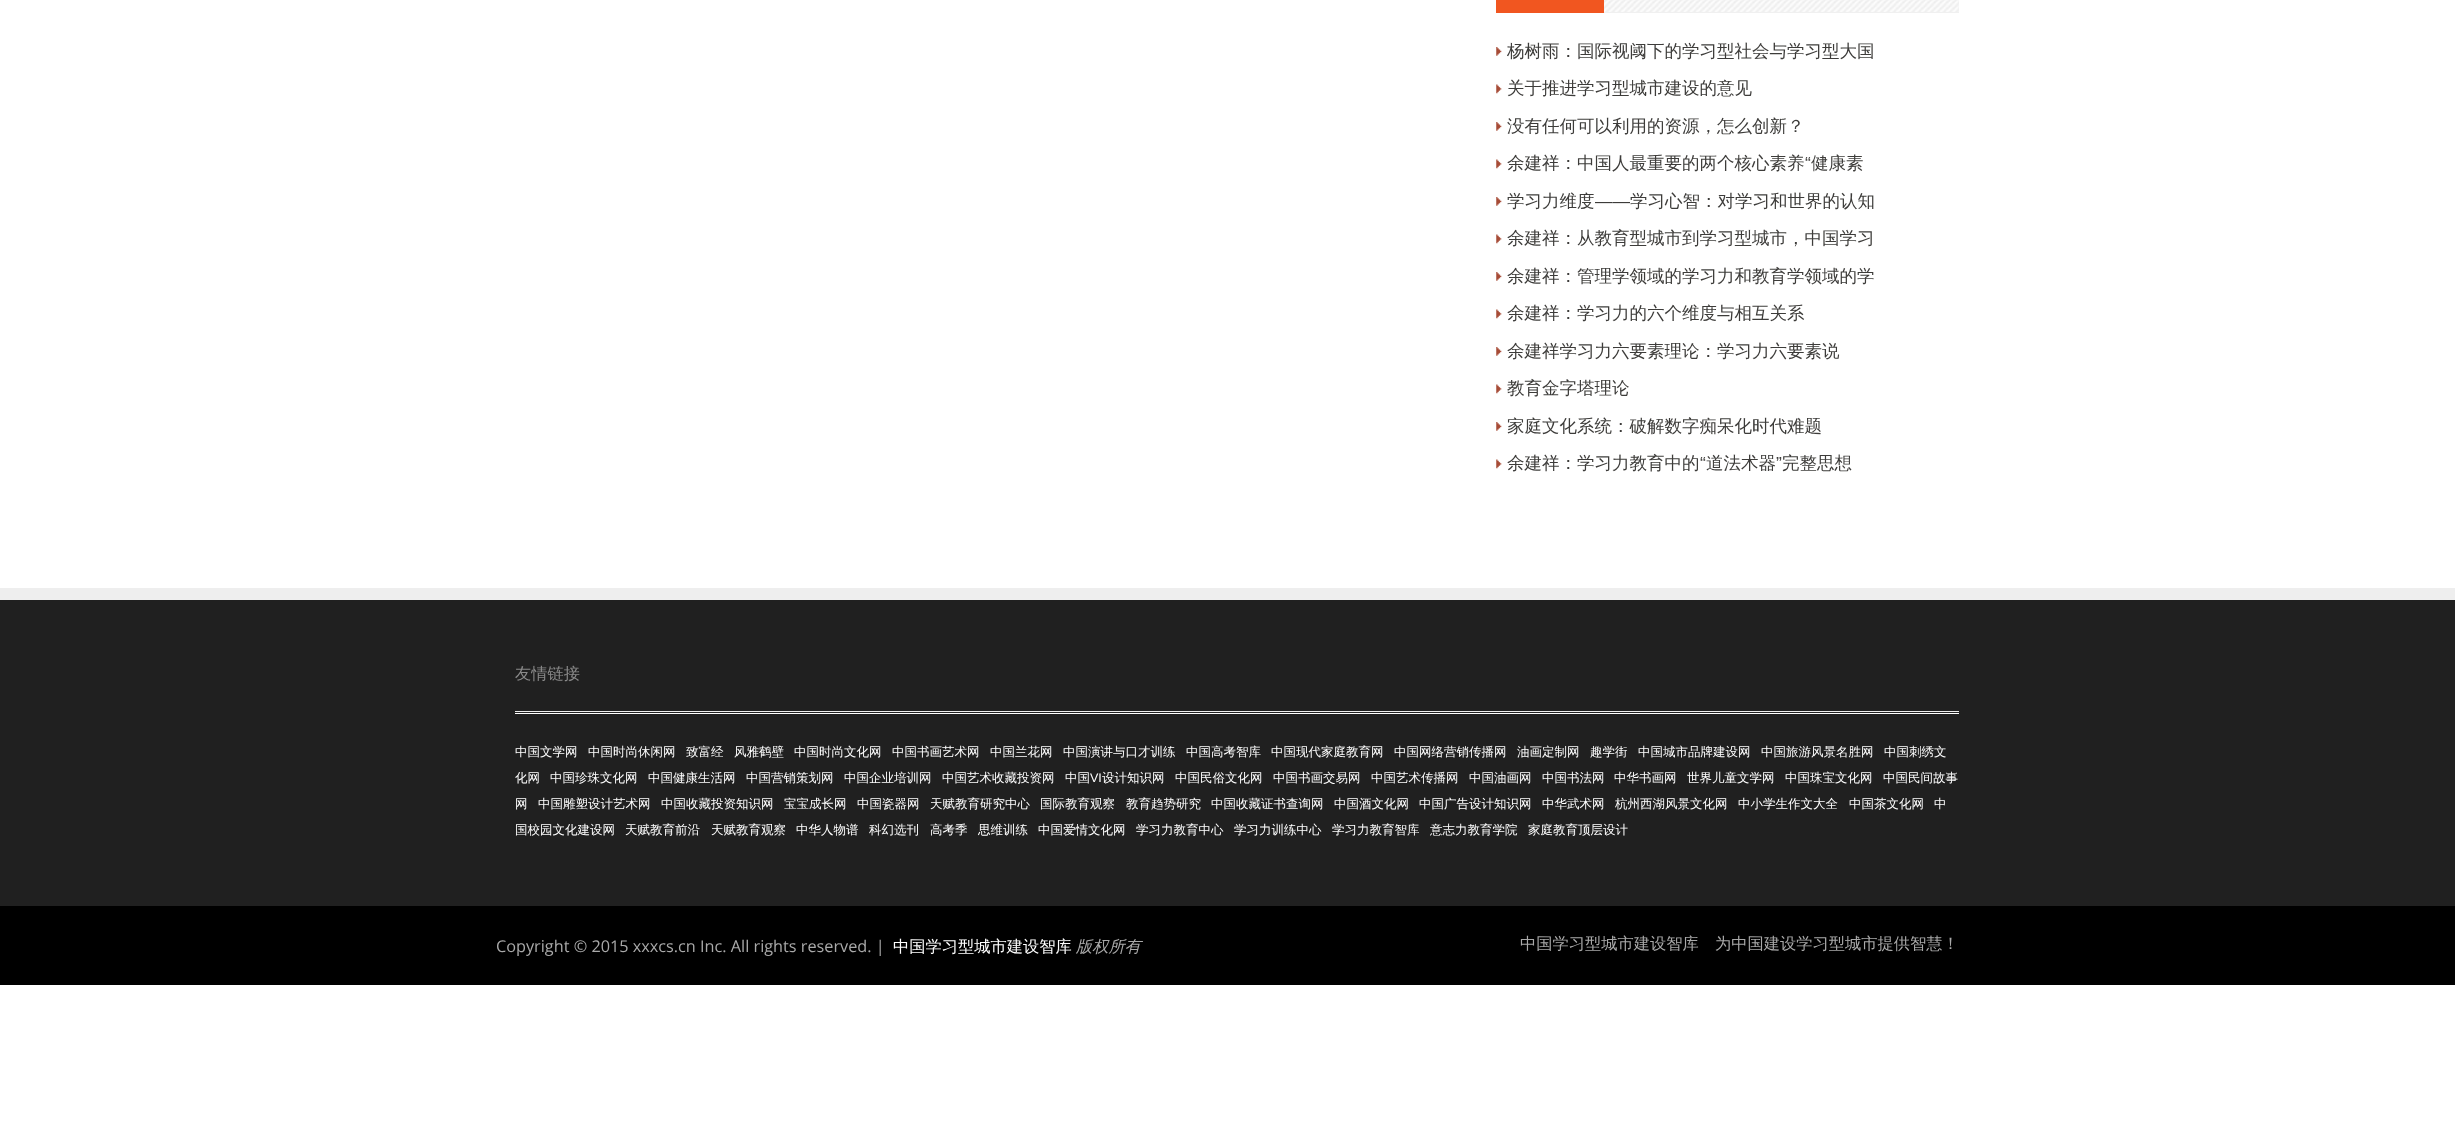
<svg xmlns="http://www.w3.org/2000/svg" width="2455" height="1129">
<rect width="100%" height="100%" fill="#fff"/>
<rect x="1604" width="355" height="13" fill="#f0f0f0"/>
<image x="1604" y="0" width="355" height="12" href="media/1.png"/>
<rect x="1496" width="108" height="13" fill="#f15620"/>
<image x="1496" y="47" width="6" height="9" href="media/2.png"/>
<text x="1507" y="57" style="font-family:WenQuanYi Zen Hei;font-size:17.5px;font-weight:500;fill:#3d3c3a">杨树雨：国际视阈下的学习型社会与学习型大国</text>
<image x="1496" y="84" width="6" height="10" href="media/3.png"/>
<text x="1507" y="94" style="font-family:WenQuanYi Zen Hei;font-size:17.5px;font-weight:500;fill:#3d3c3a">关于推进学习型城市建设的意见</text>
<image x="1496" y="122" width="6" height="9" href="media/2.png"/>
<text x="1507" y="132" style="font-family:WenQuanYi Zen Hei;font-size:17.5px;font-weight:500;fill:#3d3c3a">没有任何可以利用的资源，怎么创新？</text>
<text x="1507" y="169" style="font-family:WenQuanYi Zen Hei;font-size:17.5px;font-weight:500;fill:#3d3c3a">余建祥：中国人最重要的两个核心素养</text>
<text x="1805" y="169" style="font-family:Liberation Sans;font-size:17.5px;fill:#3d3c3a">“</text>
<text x="1811" y="169" style="font-family:WenQuanYi Zen Hei;font-size:17.5px;font-weight:500;fill:#3d3c3a">健康素</text>
<image x="1496" y="159" width="6" height="10" href="media/3.png"/>
<image x="1496" y="197" width="6" height="9" href="media/2.png"/>
<text x="1507" y="207" style="font-family:WenQuanYi Zen Hei;font-size:17.5px;font-weight:500;fill:#3d3c3a">学习力维度</text>
<text x="1595" y="207" style="font-family:Liberation Sans;font-size:17.5px;fill:#3d3c3a">——</text>
<text x="1630" y="207" style="font-family:WenQuanYi Zen Hei;font-size:17.5px;font-weight:500;fill:#3d3c3a">学习心智：对学习和世界的认知</text>
<image x="1496" y="234" width="6" height="10" href="media/3.png"/>
<text x="1507" y="244" style="font-family:WenQuanYi Zen Hei;font-size:17.5px;font-weight:500;fill:#3d3c3a">余建祥：从教育型城市到学习型城市，中国学习</text>
<image x="1496" y="272" width="6" height="9" href="media/2.png"/>
<text x="1507" y="282" style="font-family:WenQuanYi Zen Hei;font-size:17.5px;font-weight:500;fill:#3d3c3a">余建祥：管理学领域的学习力和教育学领域的学</text>
<image x="1496" y="309" width="6" height="10" href="media/3.png"/>
<text x="1507" y="319" style="font-family:WenQuanYi Zen Hei;font-size:17.5px;font-weight:500;fill:#3d3c3a">余建祥：学习力的六个维度与相互关系</text>
<image x="1496" y="347" width="6" height="9" href="media/2.png"/>
<text x="1507" y="357" style="font-family:WenQuanYi Zen Hei;font-size:17.5px;font-weight:500;fill:#3d3c3a">余建祥学习力六要素理论：学习力六要素说</text>
<image x="1496" y="384" width="6" height="10" href="media/3.png"/>
<text x="1507" y="394" style="font-family:WenQuanYi Zen Hei;font-size:17.5px;font-weight:500;fill:#3d3c3a">教育金字塔理论</text>
<image x="1496" y="422" width="6" height="9" href="media/2.png"/>
<text x="1507" y="432" style="font-family:WenQuanYi Zen Hei;font-size:17.5px;font-weight:500;fill:#3d3c3a">家庭文化系统：破解数字痴呆化时代难题</text>
<text x="1507" y="469" style="font-family:WenQuanYi Zen Hei;font-size:17.5px;font-weight:500;fill:#3d3c3a">余建祥：学习力教育中的</text>
<text x="1700" y="469" style="font-family:Liberation Sans;font-size:17.5px;fill:#3d3c3a">“</text>
<text x="1706" y="469" style="font-family:WenQuanYi Zen Hei;font-size:17.5px;font-weight:500;fill:#3d3c3a">道法术器</text>
<text x="1776" y="469" style="font-family:Liberation Sans;font-size:17.5px;fill:#3d3c3a">”</text>
<text x="1782" y="469" style="font-family:WenQuanYi Zen Hei;font-size:17.5px;font-weight:500;fill:#3d3c3a">完整思想</text>
<image x="1496" y="459" width="6" height="10" href="media/3.png"/>
<rect y="600" width="2455" height="306" fill="#202020"/>
<rect y="588" width="2455" height="12" fill="#eee"/>
<text x="515" y="679" style="font-family:WenQuanYi Zen Hei;font-size:16.25px;font-weight:500;fill:#8a8a8a">友情链接</text>
<rect x="515" y="711" width="1444" height="1" fill="#eee"/>
<rect x="515" y="713" width="1444" height="1" fill="#fff"/>
<text x="515" y="756" style="font-family:WenQuanYi Zen Hei;font-size:12.5px;font-weight:500;fill:#fff">中国文学网</text>
<text x="588" y="756" style="font-family:WenQuanYi Zen Hei;font-size:12.5px;font-weight:500;fill:#fff">中国时尚休闲网</text>
<text x="686" y="756" style="font-family:WenQuanYi Zen Hei;font-size:12.5px;font-weight:500;fill:#fff">致富经</text>
<text x="734" y="756" style="font-family:WenQuanYi Zen Hei;font-size:12.5px;font-weight:500;fill:#fff">风雅鹤壁</text>
<text x="794" y="756" style="font-family:WenQuanYi Zen Hei;font-size:12.5px;font-weight:500;fill:#fff">中国时尚文化网</text>
<text x="892" y="756" style="font-family:WenQuanYi Zen Hei;font-size:12.5px;font-weight:500;fill:#fff">中国书画艺术网</text>
<text x="990" y="756" style="font-family:WenQuanYi Zen Hei;font-size:12.5px;font-weight:500;fill:#fff">中国兰花网</text>
<text x="1063" y="756" style="font-family:WenQuanYi Zen Hei;font-size:12.5px;font-weight:500;fill:#fff">中国演讲与口才训练</text>
<text x="1186" y="756" style="font-family:WenQuanYi Zen Hei;font-size:12.5px;font-weight:500;fill:#fff">中国高考智库</text>
<text x="1271" y="756" style="font-family:WenQuanYi Zen Hei;font-size:12.5px;font-weight:500;fill:#fff">中国现代家庭教育网</text>
<text x="1394" y="756" style="font-family:WenQuanYi Zen Hei;font-size:12.5px;font-weight:500;fill:#fff">中国网络营销传播网</text>
<text x="1517" y="756" style="font-family:WenQuanYi Zen Hei;font-size:12.5px;font-weight:500;fill:#fff">油画定制网</text>
<text x="1590" y="756" style="font-family:WenQuanYi Zen Hei;font-size:12.5px;font-weight:500;fill:#fff">趣学街</text>
<text x="1638" y="756" style="font-family:WenQuanYi Zen Hei;font-size:12.5px;font-weight:500;fill:#fff">中国城市品牌建设网</text>
<text x="1761" y="756" style="font-family:WenQuanYi Zen Hei;font-size:12.5px;font-weight:500;fill:#fff">中国旅游风景名胜网</text>
<text x="1884" y="756" style="font-family:WenQuanYi Zen Hei;font-size:12.5px;font-weight:500;fill:#fff">中国刺绣文</text>
<text x="515" y="782" style="font-family:WenQuanYi Zen Hei;font-size:12.5px;font-weight:500;fill:#fff">化网</text>
<text x="550" y="782" style="font-family:WenQuanYi Zen Hei;font-size:12.5px;font-weight:500;fill:#fff">中国珍珠文化网</text>
<text x="648" y="782" style="font-family:WenQuanYi Zen Hei;font-size:12.5px;font-weight:500;fill:#fff">中国健康生活网</text>
<text x="746" y="782" style="font-family:WenQuanYi Zen Hei;font-size:12.5px;font-weight:500;fill:#fff">中国营销策划网</text>
<text x="844" y="782" style="font-family:WenQuanYi Zen Hei;font-size:12.5px;font-weight:500;fill:#fff">中国企业培训网</text>
<text x="942" y="782" style="font-family:WenQuanYi Zen Hei;font-size:12.5px;font-weight:500;fill:#fff">中国艺术收藏投资网</text>
<text x="1065" y="782" style="font-family:WenQuanYi Zen Hei;font-size:12.5px;font-weight:500;fill:#fff">中国</text>
<text x="1090" y="782" style="font-family:Liberation Sans;font-size:12.5px;fill:#fff">VI</text>
<text x="1102" y="782" style="font-family:WenQuanYi Zen Hei;font-size:12.5px;font-weight:500;fill:#fff">设计知识网</text>
<text x="1175" y="782" style="font-family:WenQuanYi Zen Hei;font-size:12.5px;font-weight:500;fill:#fff">中国民俗文化网</text>
<text x="1273" y="782" style="font-family:WenQuanYi Zen Hei;font-size:12.5px;font-weight:500;fill:#fff">中国书画交易网</text>
<text x="1371" y="782" style="font-family:WenQuanYi Zen Hei;font-size:12.5px;font-weight:500;fill:#fff">中国艺术传播网</text>
<text x="1469" y="782" style="font-family:WenQuanYi Zen Hei;font-size:12.5px;font-weight:500;fill:#fff">中国油画网</text>
<text x="1542" y="782" style="font-family:WenQuanYi Zen Hei;font-size:12.5px;font-weight:500;fill:#fff">中国书法网</text>
<text x="1614" y="782" style="font-family:WenQuanYi Zen Hei;font-size:12.5px;font-weight:500;fill:#fff">中华书画网</text>
<text x="1687" y="782" style="font-family:WenQuanYi Zen Hei;font-size:12.5px;font-weight:500;fill:#fff">世界儿童文学网</text>
<text x="1785" y="782" style="font-family:WenQuanYi Zen Hei;font-size:12.5px;font-weight:500;fill:#fff">中国珠宝文化网</text>
<text x="1883" y="782" style="font-family:WenQuanYi Zen Hei;font-size:12.5px;font-weight:500;fill:#fff">中国民间故事</text>
<text x="515" y="808" style="font-family:WenQuanYi Zen Hei;font-size:12.5px;font-weight:500;fill:#fff">网</text>
<text x="538" y="808" style="font-family:WenQuanYi Zen Hei;font-size:12.5px;font-weight:500;fill:#fff">中国雕塑设计艺术网</text>
<text x="661" y="808" style="font-family:WenQuanYi Zen Hei;font-size:12.5px;font-weight:500;fill:#fff">中国收藏投资知识网</text>
<text x="784" y="808" style="font-family:WenQuanYi Zen Hei;font-size:12.5px;font-weight:500;fill:#fff">宝宝成长网</text>
<text x="857" y="808" style="font-family:WenQuanYi Zen Hei;font-size:12.5px;font-weight:500;fill:#fff">中国瓷器网</text>
<text x="930" y="808" style="font-family:WenQuanYi Zen Hei;font-size:12.5px;font-weight:500;fill:#fff">天赋教育研究中心</text>
<text x="1040" y="808" style="font-family:WenQuanYi Zen Hei;font-size:12.5px;font-weight:500;fill:#fff">国际教育观察</text>
<text x="1126" y="808" style="font-family:WenQuanYi Zen Hei;font-size:12.5px;font-weight:500;fill:#fff">教育趋势研究</text>
<text x="1211" y="808" style="font-family:WenQuanYi Zen Hei;font-size:12.5px;font-weight:500;fill:#fff">中国收藏证书查询网</text>
<text x="1334" y="808" style="font-family:WenQuanYi Zen Hei;font-size:12.5px;font-weight:500;fill:#fff">中国酒文化网</text>
<text x="1419" y="808" style="font-family:WenQuanYi Zen Hei;font-size:12.5px;font-weight:500;fill:#fff">中国广告设计知识网</text>
<text x="1542" y="808" style="font-family:WenQuanYi Zen Hei;font-size:12.5px;font-weight:500;fill:#fff">中华武术网</text>
<text x="1615" y="808" style="font-family:WenQuanYi Zen Hei;font-size:12.5px;font-weight:500;fill:#fff">杭州西湖风景文化网</text>
<text x="1738" y="808" style="font-family:WenQuanYi Zen Hei;font-size:12.5px;font-weight:500;fill:#fff">中小学生作文大全</text>
<text x="1849" y="808" style="font-family:WenQuanYi Zen Hei;font-size:12.5px;font-weight:500;fill:#fff">中国茶文化网</text>
<text x="1934" y="808" style="font-family:WenQuanYi Zen Hei;font-size:12.5px;font-weight:500;fill:#fff">中</text>
<text x="515" y="834" style="font-family:WenQuanYi Zen Hei;font-size:12.5px;font-weight:500;fill:#fff">国校园文化建设网</text>
<text x="625" y="834" style="font-family:WenQuanYi Zen Hei;font-size:12.5px;font-weight:500;fill:#fff">天赋教育前沿</text>
<text x="711" y="834" style="font-family:WenQuanYi Zen Hei;font-size:12.5px;font-weight:500;fill:#fff">天赋教育观察</text>
<text x="796" y="834" style="font-family:WenQuanYi Zen Hei;font-size:12.5px;font-weight:500;fill:#fff">中华人物谱</text>
<text x="869" y="834" style="font-family:WenQuanYi Zen Hei;font-size:12.5px;font-weight:500;fill:#fff">科幻选刊</text>
<text x="930" y="834" style="font-family:WenQuanYi Zen Hei;font-size:12.5px;font-weight:500;fill:#fff">高考季</text>
<text x="978" y="834" style="font-family:WenQuanYi Zen Hei;font-size:12.5px;font-weight:500;fill:#fff">思维训练</text>
<text x="1038" y="834" style="font-family:WenQuanYi Zen Hei;font-size:12.5px;font-weight:500;fill:#fff">中国爱情文化网</text>
<text x="1136" y="834" style="font-family:WenQuanYi Zen Hei;font-size:12.5px;font-weight:500;fill:#fff">学习力教育中心</text>
<text x="1234" y="834" style="font-family:WenQuanYi Zen Hei;font-size:12.5px;font-weight:500;fill:#fff">学习力训练中心</text>
<text x="1332" y="834" style="font-family:WenQuanYi Zen Hei;font-size:12.5px;font-weight:500;fill:#fff">学习力教育智库</text>
<text x="1430" y="834" style="font-family:WenQuanYi Zen Hei;font-size:12.5px;font-weight:500;fill:#fff">意志力教育学院</text>
<text x="1528" y="834" style="font-family:WenQuanYi Zen Hei;font-size:12.5px;font-weight:500;fill:#fff">家庭教育顶层设计</text>
<rect y="906" width="2455" height="79" fill="#000"/>
<text x="496" y="952" style="font-family:Open Sans;font-size:16.25px;fill:#a9a9a9">Copyright © 2015 xxxcs.cn Inc. All rights reserved. |</text>
<text x="893" y="952" style="font-family:WenQuanYi Zen Hei;font-size:16.25px;font-weight:500;fill:#fff">中国学习型城市建设智库</text>
<text x="1076" y="952" style="font-family:WenQuanYi Zen Hei;font-size:16.25px;font-weight:500;font-style:italic;fill:#a9a9a9">版权所有</text>
<text x="1520" y="949" style="font-family:WenQuanYi Zen Hei;font-size:16.25px;font-weight:500;fill:#a9a9a9">中国学习型城市建设智库　为中国建设学习型城市提供智慧！</text>
</svg>
